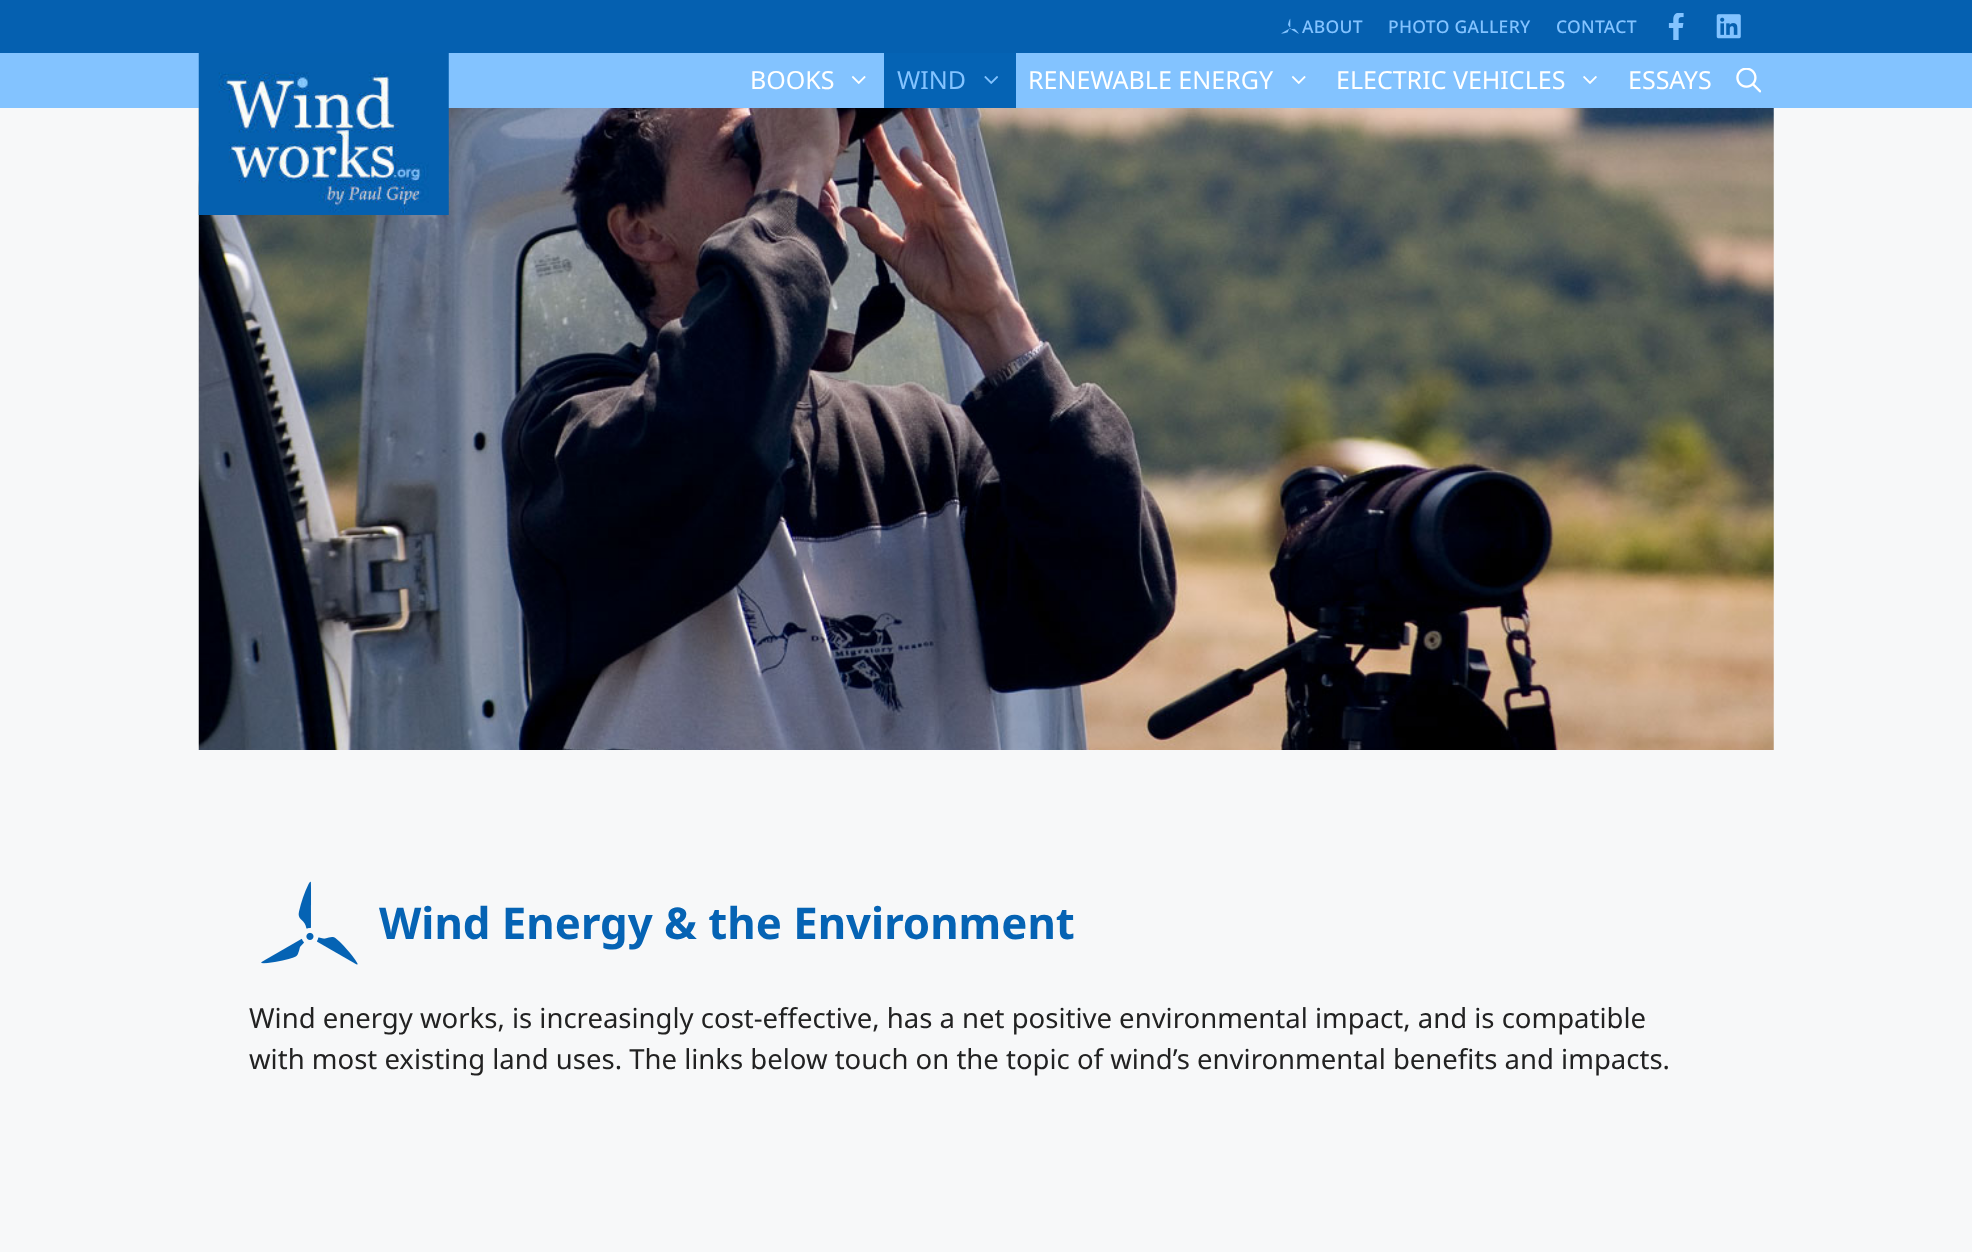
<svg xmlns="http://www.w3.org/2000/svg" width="1972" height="1252">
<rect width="100%" height="100%" fill="#f7f8f9"/>
<rect width="1972" height="53" fill="#0560b0"/>
<image x="1281" y="18" width="18" height="16" href="media/1.png"/>
<text x="1302" y="33" style="font-family:Noto Sans;font-size:17.5px;font-weight:500;letter-spacing:0.3px;fill:#83c3ff">ABOUT</text>
<text x="1388" y="33" style="font-family:Noto Sans;font-size:17.5px;font-weight:500;letter-spacing:0.3px;fill:#83c3ff">PHOTO GALLERY</text>
<text x="1556" y="33" style="font-family:Noto Sans;font-size:17.5px;font-weight:500;letter-spacing:0.3px;fill:#83c3ff">CONTACT</text>
<image x="1668" y="13" width="16" height="27" href="media/2.png"/>
<image x="1716" y="14" width="25" height="25" href="media/3.png"/>
<rect y="53" width="1972" height="55" fill="#83c3ff"/>
<image x="198" y="108" width="1576" height="642" href="media/9.png"/>
<image x="198" y="53" width="251" height="162" href="media/4.png"/>
<text x="750" y="89" style="font-family:Noto Sans;font-size:25px;fill:#fff">BOOKS</text>
<image x="851" y="76" width="15" height="8" href="media/5.png"/>
<rect x="884" y="53" width="132" height="55" fill="#0563b4"/>
<text x="897" y="89" style="font-family:Noto Sans;font-size:25px;fill:#83c3ff">WIND</text>
<image x="984" y="76" width="14" height="8" href="media/6.png"/>
<text x="1028" y="89" style="font-family:Noto Sans;font-size:25px;fill:#fff">RENEWABLE ENERGY</text>
<image x="1291" y="76" width="15" height="8" href="media/5.png"/>
<text x="1336" y="89" style="font-family:Noto Sans;font-size:25px;fill:#fff">ELECTRIC VEHICLES</text>
<image x="1583" y="76" width="14" height="8" href="media/7.png"/>
<text x="1628" y="89" style="font-family:Noto Sans;font-size:25px;fill:#fff">ESSAYS</text>
<image x="1736" y="68" width="25" height="25" href="media/8.png"/>
<image x="261" y="881" width="97" height="84" href="media/10.png"/>
<text x="379" y="939" style="font-family:Noto Sans;font-size:43.75px;font-weight:bold;fill:#0563b4">Wind Energy &amp; the Environment</text>
<text x="249" y="1028" style="font-family:Noto Sans;font-size:27.5px;fill:#222">Wind energy works, is increasingly cost-effective, has a net positive environmental impact, and is compatible</text>
<text x="249" y="1069" style="font-family:Noto Sans;font-size:27.5px;fill:#222">with most existing land uses. The links below touch on the topic of wind’s environmental benefits and impacts.</text>
</svg>
